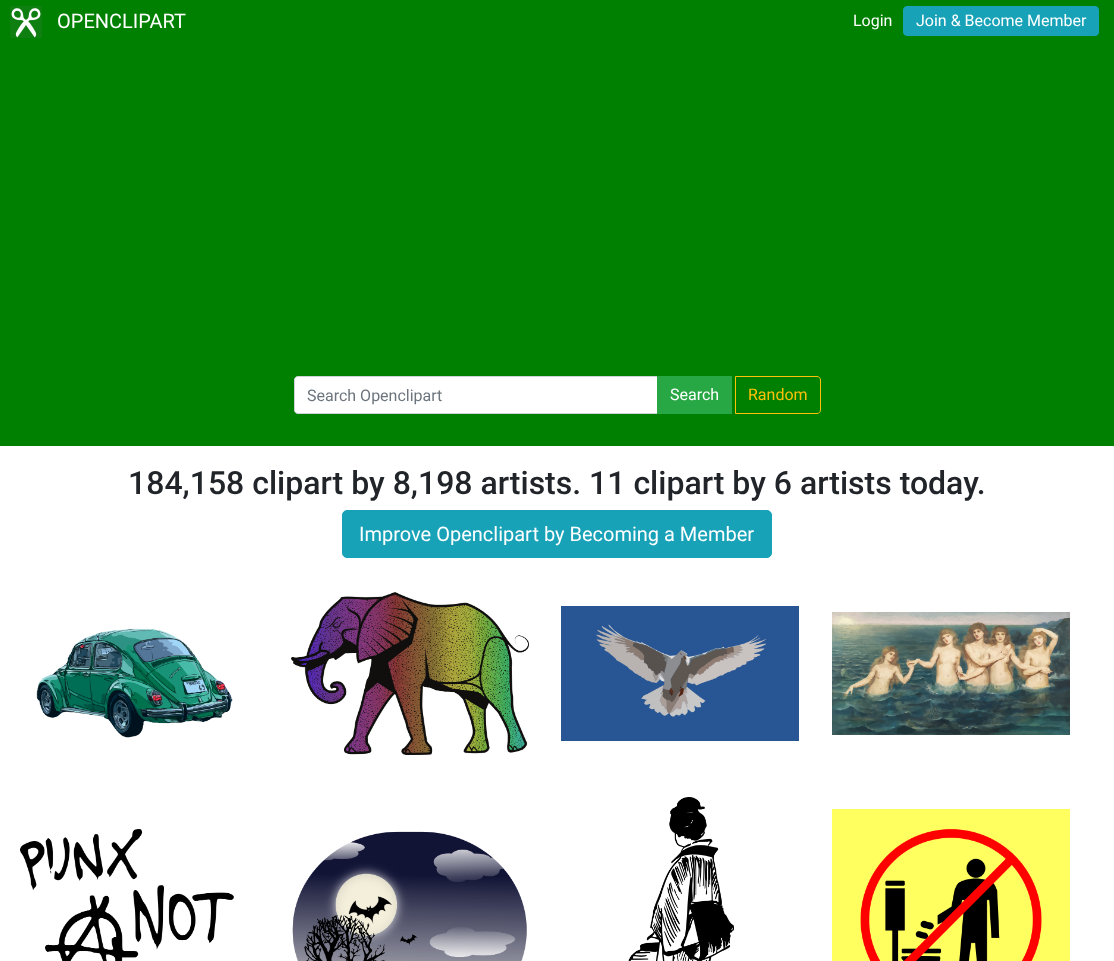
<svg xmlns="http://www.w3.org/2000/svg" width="1114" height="961">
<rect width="100%" height="100%" fill="#fff"/>
<rect width="1114" height="446" fill="#008000"/>
<image x="10" y="6" width="32" height="32" href="media/1.png"/>
<text x="57" y="28" style="font-family:Roboto;font-size:20px;fill:#fff">OPENCLIPART</text>
<text x="853" y="26" style="font-family:Roboto;font-size:16px;fill:#fff">Login</text>
<rect x="903.5" y="6.5" width="195" height="29" rx="3.5" fill="#17a2b8" stroke="#17a2b8"/>
<text x="916" y="26" style="font-family:Roboto;font-size:16px;fill:#fff">Join &amp; Become Member</text>
<path d="M298 376.5h359.5v37h-359.5c-2 0-3.5-1.5-3.5-3.5v-30c0-2 1.5-3.5 3.5-3.5z" fill="#fff" stroke="#ced4da"/>
<text x="307" y="401" style="font-family:Roboto;font-size:16px;fill:#6c757d">Search Openclipart</text>
<rect x="657" y="376" width="75" height="38" fill="#28a745"/>
<text x="670" y="400" style="font-family:Roboto;font-size:16px;fill:#fff">Search</text>
<path d="M735.5 376.5h81.5c2 0 3.5 1.5 3.5 3.5v30c0 2-1.5 3.5-3.5 3.5h-81.5z" fill="none" stroke="#ffc107"/>
<text x="748" y="400" style="font-family:Roboto;font-size:16px;fill:#ffc107">Random</text>
<text x="128" y="494" style="font-family:Roboto;font-size:32px;font-weight:500;fill:#212529">184,158 clipart by 8,198 artists. 11 clipart by 6 artists today.</text>
<rect x="342.5" y="510.5" width="429" height="47" rx="4.5" fill="#17a2b8" stroke="#17a2b8"/>
<text x="359" y="541" style="font-family:Roboto;font-size:20px;fill:#fff">Improve Openclipart by Becoming a Member</text>
<image x="36" y="628" width="197" height="110" href="media/2.png"/>
<image x="291" y="592" width="238" height="163" href="media/3.png"/>
<image x="561" y="606" width="238" height="135" href="media/4.png"/>
<image x="832" y="612" width="238" height="123" href="media/5.png"/>
<image x="20" y="829" width="214" height="132" href="media/6.png"/>
<image x="292" y="831" width="235" height="130" href="media/7.png"/>
<image x="628" y="797" width="106" height="164" href="media/8.png"/>
<image x="832" y="809" width="238" height="152" href="media/9.png"/>
</svg>
